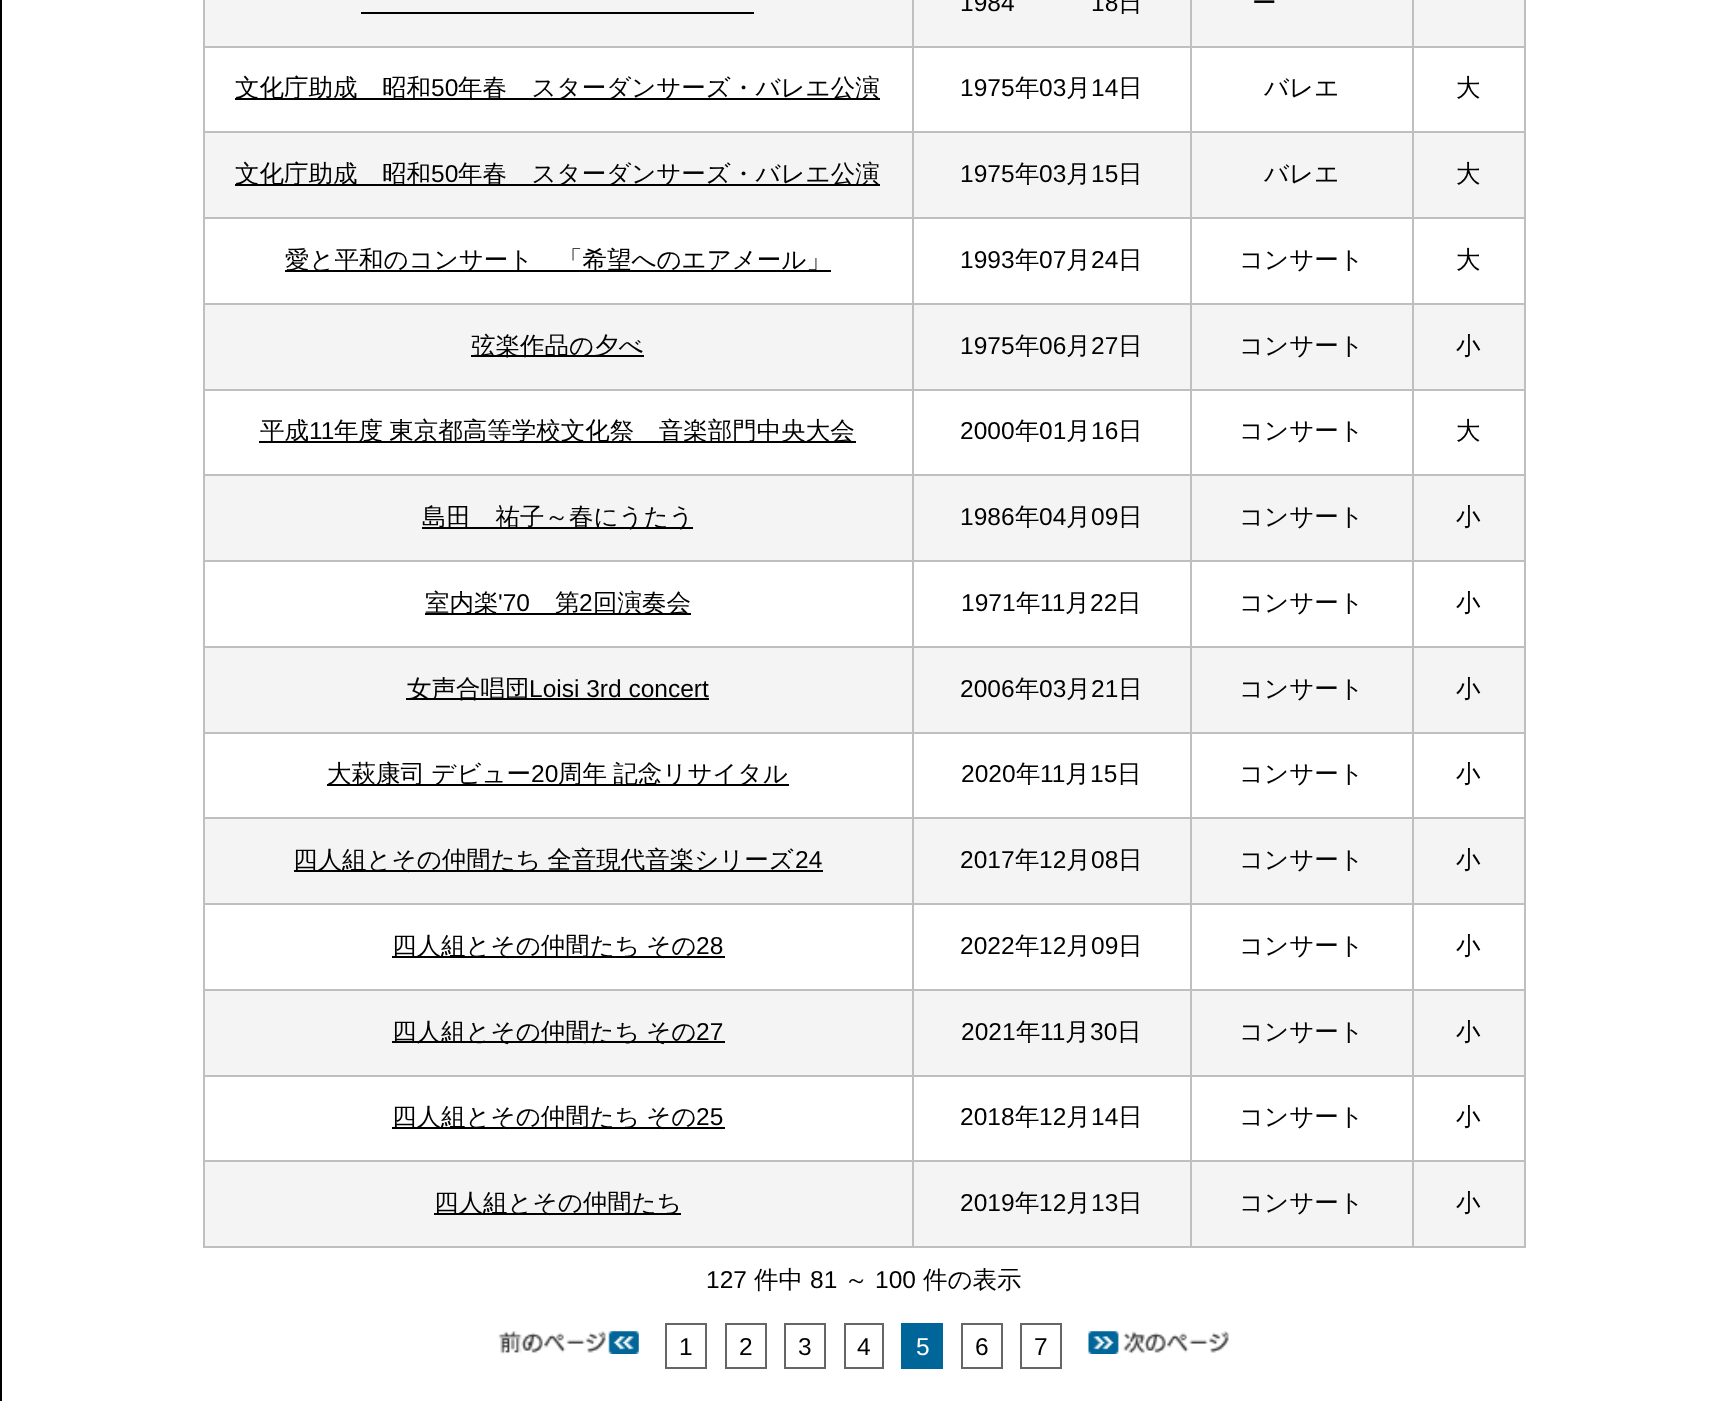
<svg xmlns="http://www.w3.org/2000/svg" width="1722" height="1401">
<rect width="100%" height="100%" fill="#fff"/>
<rect width="2" height="1401" fill="#000"/>
<rect x="205" width="1319" height="46" fill="#f4f4f4"/>
<rect x="361" y="12" width="393" height="2" fill="#000"/>
<rect x="1412" y="46" width="114" height="2" fill="#bfbfbf"/>
<rect x="1412" y="131" width="114" height="2" fill="#bfbfbf"/>
<rect x="205" y="133" width="1319" height="84" fill="#f4f4f4"/>
<rect x="1412" y="217" width="114" height="2" fill="#bfbfbf"/>
<rect x="1412" y="303" width="114" height="2" fill="#bfbfbf"/>
<rect x="205" y="305" width="1319" height="84" fill="#f4f4f4"/>
<rect x="1412" y="389" width="114" height="2" fill="#bfbfbf"/>
<rect x="1412" y="474" width="114" height="2" fill="#bfbfbf"/>
<rect x="205" y="476" width="1319" height="84" fill="#f4f4f4"/>
<rect x="1412" y="560" width="114" height="2" fill="#bfbfbf"/>
<rect x="1412" y="646" width="114" height="2" fill="#bfbfbf"/>
<rect x="205" y="648" width="1319" height="84" fill="#f4f4f4"/>
<rect x="1412" y="732" width="114" height="2" fill="#bfbfbf"/>
<rect x="1412" y="817" width="114" height="2" fill="#bfbfbf"/>
<rect x="205" y="819" width="1319" height="84" fill="#f4f4f4"/>
<rect x="1412" y="903" width="114" height="2" fill="#bfbfbf"/>
<rect x="1412" y="989" width="114" height="2" fill="#bfbfbf"/>
<rect x="205" y="991" width="1319" height="84" fill="#f4f4f4"/>
<rect x="1412" y="1075" width="114" height="2" fill="#bfbfbf"/>
<rect x="1412" y="1160" width="114" height="2" fill="#bfbfbf"/>
<rect x="205" y="1162" width="1319" height="84" fill="#f4f4f4"/>
<rect x="1524" y="1160" width="2" height="88" fill="#bfbfbf"/>
<rect x="1412" y="1246" width="114" height="2" fill="#bfbfbf"/>
<rect x="1412" y="1160" width="2" height="88" fill="#bfbfbf"/>
<rect x="1190" y="1160" width="224" height="2" fill="#bfbfbf"/>
<rect x="1412" y="1075" width="2" height="87" fill="#bfbfbf"/>
<rect x="1190" y="1075" width="224" height="2" fill="#bfbfbf"/>
<rect x="1412" y="989" width="2" height="87" fill="#bfbfbf"/>
<rect x="1190" y="989" width="224" height="2" fill="#bfbfbf"/>
<rect x="1412" y="903" width="2" height="88" fill="#bfbfbf"/>
<rect x="1190" y="903" width="224" height="2" fill="#bfbfbf"/>
<rect x="1412" y="817" width="2" height="88" fill="#bfbfbf"/>
<rect x="1190" y="817" width="224" height="2" fill="#bfbfbf"/>
<rect x="1412" y="732" width="2" height="87" fill="#bfbfbf"/>
<rect x="1190" y="732" width="224" height="2" fill="#bfbfbf"/>
<rect x="1412" y="646" width="2" height="87" fill="#bfbfbf"/>
<rect x="1190" y="646" width="224" height="2" fill="#bfbfbf"/>
<rect x="1412" y="560" width="2" height="88" fill="#bfbfbf"/>
<rect x="1190" y="560" width="224" height="2" fill="#bfbfbf"/>
<rect x="1412" y="474" width="2" height="88" fill="#bfbfbf"/>
<rect x="1190" y="474" width="224" height="2" fill="#bfbfbf"/>
<rect x="1412" y="389" width="2" height="87" fill="#bfbfbf"/>
<rect x="1190" y="389" width="224" height="2" fill="#bfbfbf"/>
<rect x="1412" y="303" width="2" height="87" fill="#bfbfbf"/>
<rect x="1190" y="303" width="224" height="2" fill="#bfbfbf"/>
<rect x="1412" y="217" width="2" height="88" fill="#bfbfbf"/>
<rect x="1190" y="217" width="224" height="2" fill="#bfbfbf"/>
<rect x="1412" y="131" width="2" height="88" fill="#bfbfbf"/>
<rect x="1190" y="131" width="224" height="2" fill="#bfbfbf"/>
<rect x="1412" y="46" width="2" height="87" fill="#bfbfbf"/>
<rect x="1190" y="46" width="224" height="2" fill="#bfbfbf"/>
<rect x="1190" y="1246" width="224" height="2" fill="#bfbfbf"/>
<rect x="1190" y="1160" width="2" height="88" fill="#bfbfbf"/>
<rect x="912" y="1160" width="280" height="2" fill="#bfbfbf"/>
<rect x="1190" y="1075" width="2" height="87" fill="#bfbfbf"/>
<rect x="912" y="1075" width="280" height="2" fill="#bfbfbf"/>
<rect x="1190" y="989" width="2" height="87" fill="#bfbfbf"/>
<rect x="912" y="989" width="280" height="2" fill="#bfbfbf"/>
<rect x="1190" y="903" width="2" height="88" fill="#bfbfbf"/>
<rect x="912" y="903" width="280" height="2" fill="#bfbfbf"/>
<rect x="1190" y="817" width="2" height="88" fill="#bfbfbf"/>
<rect x="912" y="817" width="280" height="2" fill="#bfbfbf"/>
<rect x="1190" y="732" width="2" height="87" fill="#bfbfbf"/>
<rect x="912" y="732" width="280" height="2" fill="#bfbfbf"/>
<rect x="1190" y="646" width="2" height="87" fill="#bfbfbf"/>
<rect x="912" y="646" width="280" height="2" fill="#bfbfbf"/>
<rect x="1190" y="560" width="2" height="88" fill="#bfbfbf"/>
<rect x="912" y="560" width="280" height="2" fill="#bfbfbf"/>
<rect x="1190" y="474" width="2" height="88" fill="#bfbfbf"/>
<rect x="912" y="474" width="280" height="2" fill="#bfbfbf"/>
<rect x="1190" y="389" width="2" height="87" fill="#bfbfbf"/>
<rect x="912" y="389" width="280" height="2" fill="#bfbfbf"/>
<rect x="1190" y="303" width="2" height="87" fill="#bfbfbf"/>
<rect x="912" y="303" width="280" height="2" fill="#bfbfbf"/>
<rect x="1190" y="217" width="2" height="88" fill="#bfbfbf"/>
<rect x="912" y="217" width="280" height="2" fill="#bfbfbf"/>
<rect x="1190" y="131" width="2" height="88" fill="#bfbfbf"/>
<rect x="912" y="131" width="280" height="2" fill="#bfbfbf"/>
<rect x="1190" y="46" width="2" height="87" fill="#bfbfbf"/>
<rect x="912" y="46" width="280" height="2" fill="#bfbfbf"/>
<rect x="912" y="1246" width="280" height="2" fill="#bfbfbf"/>
<rect x="912" y="1160" width="2" height="88" fill="#bfbfbf"/>
<rect x="203" y="1160" width="711" height="2" fill="#bfbfbf"/>
<rect x="912" y="1075" width="2" height="87" fill="#bfbfbf"/>
<rect x="203" y="1075" width="711" height="2" fill="#bfbfbf"/>
<rect x="912" y="989" width="2" height="87" fill="#bfbfbf"/>
<rect x="203" y="989" width="711" height="2" fill="#bfbfbf"/>
<rect x="912" y="903" width="2" height="88" fill="#bfbfbf"/>
<rect x="203" y="903" width="711" height="2" fill="#bfbfbf"/>
<rect x="912" y="817" width="2" height="88" fill="#bfbfbf"/>
<rect x="203" y="817" width="711" height="2" fill="#bfbfbf"/>
<rect x="912" y="732" width="2" height="87" fill="#bfbfbf"/>
<rect x="203" y="732" width="711" height="2" fill="#bfbfbf"/>
<rect x="912" y="646" width="2" height="87" fill="#bfbfbf"/>
<rect x="203" y="646" width="711" height="2" fill="#bfbfbf"/>
<rect x="912" y="560" width="2" height="88" fill="#bfbfbf"/>
<rect x="203" y="560" width="711" height="2" fill="#bfbfbf"/>
<rect x="912" y="474" width="2" height="88" fill="#bfbfbf"/>
<rect x="203" y="474" width="711" height="2" fill="#bfbfbf"/>
<rect x="912" y="389" width="2" height="87" fill="#bfbfbf"/>
<rect x="203" y="389" width="711" height="2" fill="#bfbfbf"/>
<rect x="912" y="303" width="2" height="87" fill="#bfbfbf"/>
<rect x="203" y="303" width="711" height="2" fill="#bfbfbf"/>
<rect x="912" y="217" width="2" height="88" fill="#bfbfbf"/>
<rect x="203" y="217" width="711" height="2" fill="#bfbfbf"/>
<rect x="912" y="131" width="2" height="88" fill="#bfbfbf"/>
<rect x="203" y="131" width="711" height="2" fill="#bfbfbf"/>
<rect x="912" y="46" width="2" height="87" fill="#bfbfbf"/>
<rect x="203" y="46" width="711" height="2" fill="#bfbfbf"/>
<rect x="912" width="2" height="47" fill="#bfbfbf"/>
<text x="960" y="11" style="font-family:Liberation Sans;font-size:24.5px;fill:#000">1984</text>
<text x="1091" y="11" style="font-family:Liberation Sans;font-size:24.5px;fill:#000">18</text>
<text x="1118" y="11" style="font-family:WenQuanYi Zen Hei;font-size:24.5px;font-weight:500;fill:#000">日</text>
<rect x="1190" width="2" height="47" fill="#bfbfbf"/>
<text x="1252" y="11" style="font-family:WenQuanYi Zen Hei;font-size:24.5px;font-weight:500;fill:#000">ー</text>
<rect x="1412" width="2" height="47" fill="#bfbfbf"/>
<rect x="203" y="1246" width="711" height="2" fill="#bfbfbf"/>
<rect x="203" y="1160" width="2" height="88" fill="#bfbfbf"/>
<rect x="203" y="1075" width="2" height="87" fill="#bfbfbf"/>
<rect x="203" y="989" width="2" height="87" fill="#bfbfbf"/>
<rect x="203" y="903" width="2" height="88" fill="#bfbfbf"/>
<rect x="203" y="817" width="2" height="88" fill="#bfbfbf"/>
<rect x="203" y="732" width="2" height="87" fill="#bfbfbf"/>
<rect x="203" y="646" width="2" height="87" fill="#bfbfbf"/>
<rect x="203" y="560" width="2" height="88" fill="#bfbfbf"/>
<rect x="203" y="474" width="2" height="88" fill="#bfbfbf"/>
<rect x="203" y="389" width="2" height="87" fill="#bfbfbf"/>
<rect x="203" y="303" width="2" height="87" fill="#bfbfbf"/>
<rect x="203" y="217" width="2" height="88" fill="#bfbfbf"/>
<rect x="203" y="131" width="2" height="88" fill="#bfbfbf"/>
<rect x="203" width="2" height="133" fill="#bfbfbf"/>
<rect x="235" y="98" width="645" height="2" fill="#000"/>
<text x="235" y="96" style="font-family:WenQuanYi Zen Hei;font-size:24.5px;font-weight:500;fill:#000">文化庁助成　昭和</text>
<text x="431" y="96" style="font-family:Liberation Sans;font-size:24.5px;fill:#000">50</text>
<text x="458" y="96" style="font-family:WenQuanYi Zen Hei;font-size:24.5px;font-weight:500;fill:#000">年春　スターダンサーズ・バレエ公演</text>
<text x="960" y="96" style="font-family:Liberation Sans;font-size:24.5px;fill:#000">1975</text>
<text x="1015" y="96" style="font-family:WenQuanYi Zen Hei;font-size:24.5px;font-weight:500;fill:#000">年</text>
<text x="1039" y="96" style="font-family:Liberation Sans;font-size:24.5px;fill:#000">03</text>
<text x="1066" y="96" style="font-family:WenQuanYi Zen Hei;font-size:24.5px;font-weight:500;fill:#000">月</text>
<text x="1091" y="96" style="font-family:Liberation Sans;font-size:24.5px;fill:#000">14</text>
<text x="1118" y="96" style="font-family:WenQuanYi Zen Hei;font-size:24.5px;font-weight:500;fill:#000">日</text>
<text x="1264" y="96" style="font-family:WenQuanYi Zen Hei;font-size:24.5px;font-weight:500;fill:#000">バレエ</text>
<rect x="1524" y="1075" width="2" height="87" fill="#bfbfbf"/>
<rect x="1524" y="989" width="2" height="87" fill="#bfbfbf"/>
<rect x="1524" y="903" width="2" height="88" fill="#bfbfbf"/>
<rect x="1524" y="817" width="2" height="88" fill="#bfbfbf"/>
<rect x="1524" y="732" width="2" height="87" fill="#bfbfbf"/>
<rect x="1524" y="646" width="2" height="87" fill="#bfbfbf"/>
<rect x="1524" y="560" width="2" height="88" fill="#bfbfbf"/>
<rect x="1524" y="474" width="2" height="88" fill="#bfbfbf"/>
<rect x="1524" y="389" width="2" height="87" fill="#bfbfbf"/>
<rect x="1524" y="303" width="2" height="87" fill="#bfbfbf"/>
<rect x="1524" y="217" width="2" height="88" fill="#bfbfbf"/>
<rect x="1524" y="131" width="2" height="88" fill="#bfbfbf"/>
<rect x="1524" width="2" height="133" fill="#bfbfbf"/>
<text x="1456" y="96" style="font-family:WenQuanYi Zen Hei;font-size:24.5px;font-weight:500;fill:#000">大</text>
<rect x="235" y="184" width="645" height="2" fill="#000"/>
<text x="235" y="182" style="font-family:WenQuanYi Zen Hei;font-size:24.5px;font-weight:500;fill:#000">文化庁助成　昭和</text>
<text x="431" y="182" style="font-family:Liberation Sans;font-size:24.5px;fill:#000">50</text>
<text x="458" y="182" style="font-family:WenQuanYi Zen Hei;font-size:24.5px;font-weight:500;fill:#000">年春　スターダンサーズ・バレエ公演</text>
<text x="960" y="182" style="font-family:Liberation Sans;font-size:24.5px;fill:#000">1975</text>
<text x="1015" y="182" style="font-family:WenQuanYi Zen Hei;font-size:24.5px;font-weight:500;fill:#000">年</text>
<text x="1039" y="182" style="font-family:Liberation Sans;font-size:24.5px;fill:#000">03</text>
<text x="1066" y="182" style="font-family:WenQuanYi Zen Hei;font-size:24.5px;font-weight:500;fill:#000">月</text>
<text x="1091" y="182" style="font-family:Liberation Sans;font-size:24.5px;fill:#000">15</text>
<text x="1118" y="182" style="font-family:WenQuanYi Zen Hei;font-size:24.5px;font-weight:500;fill:#000">日</text>
<text x="1264" y="182" style="font-family:WenQuanYi Zen Hei;font-size:24.5px;font-weight:500;fill:#000">バレエ</text>
<text x="1456" y="182" style="font-family:WenQuanYi Zen Hei;font-size:24.5px;font-weight:500;fill:#000">大</text>
<rect x="285" y="270" width="546" height="2" fill="#000"/>
<text x="285" y="268" style="font-family:WenQuanYi Zen Hei;font-size:24.5px;font-weight:500;fill:#000">愛と平和のコンサート　「希望へのエアメール」</text>
<text x="960" y="268" style="font-family:Liberation Sans;font-size:24.5px;fill:#000">1993</text>
<text x="1015" y="268" style="font-family:WenQuanYi Zen Hei;font-size:24.5px;font-weight:500;fill:#000">年</text>
<text x="1039" y="268" style="font-family:Liberation Sans;font-size:24.5px;fill:#000">07</text>
<text x="1066" y="268" style="font-family:WenQuanYi Zen Hei;font-size:24.5px;font-weight:500;fill:#000">月</text>
<text x="1091" y="268" style="font-family:Liberation Sans;font-size:24.5px;fill:#000">24</text>
<text x="1118" y="268" style="font-family:WenQuanYi Zen Hei;font-size:24.5px;font-weight:500;fill:#000">日</text>
<text x="1239" y="268" style="font-family:WenQuanYi Zen Hei;font-size:24.5px;font-weight:500;fill:#000">コンサート</text>
<text x="1456" y="268" style="font-family:WenQuanYi Zen Hei;font-size:24.5px;font-weight:500;fill:#000">大</text>
<rect x="471" y="355" width="173" height="2" fill="#000"/>
<text x="471" y="354" style="font-family:WenQuanYi Zen Hei;font-size:24.5px;font-weight:500;fill:#000">弦楽作品の夕べ</text>
<text x="960" y="354" style="font-family:Liberation Sans;font-size:24.5px;fill:#000">1975</text>
<text x="1015" y="354" style="font-family:WenQuanYi Zen Hei;font-size:24.5px;font-weight:500;fill:#000">年</text>
<text x="1039" y="354" style="font-family:Liberation Sans;font-size:24.5px;fill:#000">06</text>
<text x="1066" y="354" style="font-family:WenQuanYi Zen Hei;font-size:24.5px;font-weight:500;fill:#000">月</text>
<text x="1091" y="354" style="font-family:Liberation Sans;font-size:24.5px;fill:#000">27</text>
<text x="1118" y="354" style="font-family:WenQuanYi Zen Hei;font-size:24.5px;font-weight:500;fill:#000">日</text>
<text x="1239" y="354" style="font-family:WenQuanYi Zen Hei;font-size:24.5px;font-weight:500;fill:#000">コンサート</text>
<text x="1456" y="354" style="font-family:WenQuanYi Zen Hei;font-size:24.5px;font-weight:500;fill:#000">小</text>
<rect x="259" y="441" width="597" height="2" fill="#000"/>
<text x="260" y="439" style="font-family:WenQuanYi Zen Hei;font-size:24.5px;font-weight:500;fill:#000">平成</text>
<text x="309" y="439" style="font-family:Liberation Sans;font-size:24.5px;fill:#000">11</text>
<text x="334" y="439" word-spacing="-1" style="font-family:WenQuanYi Zen Hei;font-size:24.5px;font-weight:500;fill:#000">年度 東京都高等学校文化祭　音楽部門中央大会</text>
<text x="960" y="439" style="font-family:Liberation Sans;font-size:24.5px;fill:#000">2000</text>
<text x="1015" y="439" style="font-family:WenQuanYi Zen Hei;font-size:24.5px;font-weight:500;fill:#000">年</text>
<text x="1039" y="439" style="font-family:Liberation Sans;font-size:24.5px;fill:#000">01</text>
<text x="1066" y="439" style="font-family:WenQuanYi Zen Hei;font-size:24.5px;font-weight:500;fill:#000">月</text>
<text x="1091" y="439" style="font-family:Liberation Sans;font-size:24.5px;fill:#000">16</text>
<text x="1118" y="439" style="font-family:WenQuanYi Zen Hei;font-size:24.5px;font-weight:500;fill:#000">日</text>
<text x="1239" y="439" style="font-family:WenQuanYi Zen Hei;font-size:24.5px;font-weight:500;fill:#000">コンサート</text>
<text x="1456" y="439" style="font-family:WenQuanYi Zen Hei;font-size:24.5px;font-weight:500;fill:#000">大</text>
<rect x="422" y="527" width="271" height="2" fill="#000"/>
<text x="422" y="525" style="font-family:WenQuanYi Zen Hei;font-size:24.5px;font-weight:500;fill:#000">島田　祐子～春にうたう</text>
<text x="960" y="525" style="font-family:Liberation Sans;font-size:24.5px;fill:#000">1986</text>
<text x="1015" y="525" style="font-family:WenQuanYi Zen Hei;font-size:24.5px;font-weight:500;fill:#000">年</text>
<text x="1039" y="525" style="font-family:Liberation Sans;font-size:24.5px;fill:#000">04</text>
<text x="1066" y="525" style="font-family:WenQuanYi Zen Hei;font-size:24.5px;font-weight:500;fill:#000">月</text>
<text x="1091" y="525" style="font-family:Liberation Sans;font-size:24.5px;fill:#000">09</text>
<text x="1118" y="525" style="font-family:WenQuanYi Zen Hei;font-size:24.5px;font-weight:500;fill:#000">日</text>
<text x="1239" y="525" style="font-family:WenQuanYi Zen Hei;font-size:24.5px;font-weight:500;fill:#000">コンサート</text>
<text x="1456" y="525" style="font-family:WenQuanYi Zen Hei;font-size:24.5px;font-weight:500;fill:#000">小</text>
<rect x="425" y="613" width="266" height="2" fill="#000"/>
<text x="425" y="611" style="font-family:WenQuanYi Zen Hei;font-size:24.5px;font-weight:500;fill:#000">室内楽</text>
<text x="498" y="611" style="font-family:Liberation Sans;font-size:24.5px;fill:#000">'70</text>
<text x="555" y="611" style="font-family:WenQuanYi Zen Hei;font-size:24.5px;font-weight:500;fill:#000">第</text>
<text x="579" y="611" style="font-family:Liberation Sans;font-size:24.5px;fill:#000">2</text>
<text x="593" y="611" style="font-family:WenQuanYi Zen Hei;font-size:24.5px;font-weight:500;fill:#000">回演奏会</text>
<text x="961" y="611" style="font-family:Liberation Sans;font-size:24.5px;fill:#000">1971</text>
<text x="1016" y="611" style="font-family:WenQuanYi Zen Hei;font-size:24.5px;font-weight:500;fill:#000">年</text>
<text x="1040" y="611" style="font-family:Liberation Sans;font-size:24.5px;fill:#000">11</text>
<text x="1065" y="611" style="font-family:WenQuanYi Zen Hei;font-size:24.5px;font-weight:500;fill:#000">月</text>
<text x="1090" y="611" style="font-family:Liberation Sans;font-size:24.5px;fill:#000">22</text>
<text x="1117" y="611" style="font-family:WenQuanYi Zen Hei;font-size:24.5px;font-weight:500;fill:#000">日</text>
<text x="1239" y="611" style="font-family:WenQuanYi Zen Hei;font-size:24.5px;font-weight:500;fill:#000">コンサート</text>
<text x="1456" y="611" style="font-family:WenQuanYi Zen Hei;font-size:24.5px;font-weight:500;fill:#000">小</text>
<rect x="406" y="698" width="303" height="2" fill="#000"/>
<text x="407" y="697" style="font-family:WenQuanYi Zen Hei;font-size:24.5px;font-weight:500;fill:#000">女声合唱団</text>
<text x="529" y="697" style="font-family:Liberation Sans;font-size:24.5px;fill:#000">Loisi 3rd concert</text>
<text x="960" y="697" style="font-family:Liberation Sans;font-size:24.5px;fill:#000">2006</text>
<text x="1015" y="697" style="font-family:WenQuanYi Zen Hei;font-size:24.5px;font-weight:500;fill:#000">年</text>
<text x="1039" y="697" style="font-family:Liberation Sans;font-size:24.5px;fill:#000">03</text>
<text x="1066" y="697" style="font-family:WenQuanYi Zen Hei;font-size:24.5px;font-weight:500;fill:#000">月</text>
<text x="1091" y="697" style="font-family:Liberation Sans;font-size:24.5px;fill:#000">21</text>
<text x="1118" y="697" style="font-family:WenQuanYi Zen Hei;font-size:24.5px;font-weight:500;fill:#000">日</text>
<text x="1239" y="697" style="font-family:WenQuanYi Zen Hei;font-size:24.5px;font-weight:500;fill:#000">コンサート</text>
<text x="1456" y="697" style="font-family:WenQuanYi Zen Hei;font-size:24.5px;font-weight:500;fill:#000">小</text>
<rect x="327" y="784" width="462" height="2" fill="#000"/>
<text x="327" y="782" word-spacing="-1" style="font-family:WenQuanYi Zen Hei;font-size:24.5px;font-weight:500;fill:#000">大萩康司 デビュー</text>
<text x="531" y="782" style="font-family:Liberation Sans;font-size:24.5px;fill:#000">20</text>
<text x="558" y="782" word-spacing="-1" style="font-family:WenQuanYi Zen Hei;font-size:24.5px;font-weight:500;fill:#000">周年 記念リサイタル</text>
<text x="961" y="782" style="font-family:Liberation Sans;font-size:24.5px;fill:#000">2020</text>
<text x="1016" y="782" style="font-family:WenQuanYi Zen Hei;font-size:24.5px;font-weight:500;fill:#000">年</text>
<text x="1040" y="782" style="font-family:Liberation Sans;font-size:24.5px;fill:#000">11</text>
<text x="1065" y="782" style="font-family:WenQuanYi Zen Hei;font-size:24.5px;font-weight:500;fill:#000">月</text>
<text x="1090" y="782" style="font-family:Liberation Sans;font-size:24.5px;fill:#000">15</text>
<text x="1117" y="782" style="font-family:WenQuanYi Zen Hei;font-size:24.5px;font-weight:500;fill:#000">日</text>
<text x="1239" y="782" style="font-family:WenQuanYi Zen Hei;font-size:24.5px;font-weight:500;fill:#000">コンサート</text>
<text x="1456" y="782" style="font-family:WenQuanYi Zen Hei;font-size:24.5px;font-weight:500;fill:#000">小</text>
<rect x="294" y="870" width="529" height="2" fill="#000"/>
<text x="293" y="868" word-spacing="-1" style="font-family:WenQuanYi Zen Hei;font-size:24.5px;font-weight:500;fill:#000">四人組とその仲間たち 全音現代音楽シリーズ</text>
<text x="795" y="868" style="font-family:Liberation Sans;font-size:24.5px;fill:#000">24</text>
<text x="960" y="868" style="font-family:Liberation Sans;font-size:24.5px;fill:#000">2017</text>
<text x="1015" y="868" style="font-family:WenQuanYi Zen Hei;font-size:24.5px;font-weight:500;fill:#000">年</text>
<text x="1039" y="868" style="font-family:Liberation Sans;font-size:24.5px;fill:#000">12</text>
<text x="1066" y="868" style="font-family:WenQuanYi Zen Hei;font-size:24.5px;font-weight:500;fill:#000">月</text>
<text x="1091" y="868" style="font-family:Liberation Sans;font-size:24.5px;fill:#000">08</text>
<text x="1118" y="868" style="font-family:WenQuanYi Zen Hei;font-size:24.5px;font-weight:500;fill:#000">日</text>
<text x="1239" y="868" style="font-family:WenQuanYi Zen Hei;font-size:24.5px;font-weight:500;fill:#000">コンサート</text>
<text x="1456" y="868" style="font-family:WenQuanYi Zen Hei;font-size:24.5px;font-weight:500;fill:#000">小</text>
<rect x="392" y="956" width="333" height="2" fill="#000"/>
<text x="392" y="954" word-spacing="-1" style="font-family:WenQuanYi Zen Hei;font-size:24.5px;font-weight:500;fill:#000">四人組とその仲間たち その</text>
<text x="696" y="954" style="font-family:Liberation Sans;font-size:24.5px;fill:#000">28</text>
<text x="960" y="954" style="font-family:Liberation Sans;font-size:24.5px;fill:#000">2022</text>
<text x="1015" y="954" style="font-family:WenQuanYi Zen Hei;font-size:24.5px;font-weight:500;fill:#000">年</text>
<text x="1039" y="954" style="font-family:Liberation Sans;font-size:24.5px;fill:#000">12</text>
<text x="1066" y="954" style="font-family:WenQuanYi Zen Hei;font-size:24.5px;font-weight:500;fill:#000">月</text>
<text x="1091" y="954" style="font-family:Liberation Sans;font-size:24.5px;fill:#000">09</text>
<text x="1118" y="954" style="font-family:WenQuanYi Zen Hei;font-size:24.5px;font-weight:500;fill:#000">日</text>
<text x="1239" y="954" style="font-family:WenQuanYi Zen Hei;font-size:24.5px;font-weight:500;fill:#000">コンサート</text>
<text x="1456" y="954" style="font-family:WenQuanYi Zen Hei;font-size:24.5px;font-weight:500;fill:#000">小</text>
<rect x="392" y="1041" width="333" height="2" fill="#000"/>
<text x="392" y="1040" word-spacing="-1" style="font-family:WenQuanYi Zen Hei;font-size:24.5px;font-weight:500;fill:#000">四人組とその仲間たち その</text>
<text x="696" y="1040" style="font-family:Liberation Sans;font-size:24.5px;fill:#000">27</text>
<text x="961" y="1040" style="font-family:Liberation Sans;font-size:24.5px;fill:#000">2021</text>
<text x="1016" y="1040" style="font-family:WenQuanYi Zen Hei;font-size:24.5px;font-weight:500;fill:#000">年</text>
<text x="1040" y="1040" style="font-family:Liberation Sans;font-size:24.5px;fill:#000">11</text>
<text x="1065" y="1040" style="font-family:WenQuanYi Zen Hei;font-size:24.5px;font-weight:500;fill:#000">月</text>
<text x="1090" y="1040" style="font-family:Liberation Sans;font-size:24.5px;fill:#000">30</text>
<text x="1117" y="1040" style="font-family:WenQuanYi Zen Hei;font-size:24.5px;font-weight:500;fill:#000">日</text>
<text x="1239" y="1040" style="font-family:WenQuanYi Zen Hei;font-size:24.5px;font-weight:500;fill:#000">コンサート</text>
<text x="1456" y="1040" style="font-family:WenQuanYi Zen Hei;font-size:24.5px;font-weight:500;fill:#000">小</text>
<rect x="392" y="1127" width="333" height="2" fill="#000"/>
<text x="392" y="1125" word-spacing="-1" style="font-family:WenQuanYi Zen Hei;font-size:24.5px;font-weight:500;fill:#000">四人組とその仲間たち その</text>
<text x="696" y="1125" style="font-family:Liberation Sans;font-size:24.5px;fill:#000">25</text>
<text x="960" y="1125" style="font-family:Liberation Sans;font-size:24.5px;fill:#000">2018</text>
<text x="1015" y="1125" style="font-family:WenQuanYi Zen Hei;font-size:24.5px;font-weight:500;fill:#000">年</text>
<text x="1039" y="1125" style="font-family:Liberation Sans;font-size:24.5px;fill:#000">12</text>
<text x="1066" y="1125" style="font-family:WenQuanYi Zen Hei;font-size:24.5px;font-weight:500;fill:#000">月</text>
<text x="1091" y="1125" style="font-family:Liberation Sans;font-size:24.5px;fill:#000">14</text>
<text x="1118" y="1125" style="font-family:WenQuanYi Zen Hei;font-size:24.5px;font-weight:500;fill:#000">日</text>
<text x="1239" y="1125" style="font-family:WenQuanYi Zen Hei;font-size:24.5px;font-weight:500;fill:#000">コンサート</text>
<text x="1456" y="1125" style="font-family:WenQuanYi Zen Hei;font-size:24.5px;font-weight:500;fill:#000">小</text>
<rect x="434" y="1213" width="247" height="2" fill="#000"/>
<text x="434" y="1211" style="font-family:WenQuanYi Zen Hei;font-size:24.5px;font-weight:500;fill:#000">四人組とその仲間たち</text>
<text x="960" y="1211" style="font-family:Liberation Sans;font-size:24.5px;fill:#000">2019</text>
<text x="1015" y="1211" style="font-family:WenQuanYi Zen Hei;font-size:24.5px;font-weight:500;fill:#000">年</text>
<text x="1039" y="1211" style="font-family:Liberation Sans;font-size:24.5px;fill:#000">12</text>
<text x="1066" y="1211" style="font-family:WenQuanYi Zen Hei;font-size:24.5px;font-weight:500;fill:#000">月</text>
<text x="1091" y="1211" style="font-family:Liberation Sans;font-size:24.5px;fill:#000">13</text>
<text x="1118" y="1211" style="font-family:WenQuanYi Zen Hei;font-size:24.5px;font-weight:500;fill:#000">日</text>
<text x="1239" y="1211" style="font-family:WenQuanYi Zen Hei;font-size:24.5px;font-weight:500;fill:#000">コンサート</text>
<text x="1456" y="1211" style="font-family:WenQuanYi Zen Hei;font-size:24.5px;font-weight:500;fill:#000">小</text>
<text x="706" y="1288" style="font-family:Liberation Sans;font-size:24.5px;fill:#000">127</text>
<text x="754" y="1288" style="font-family:WenQuanYi Zen Hei;font-size:24.5px;font-weight:500;fill:#000">件中</text>
<text x="810" y="1288" style="font-family:Liberation Sans;font-size:24.5px;fill:#000">81</text>
<text x="844" y="1288" style="font-family:WenQuanYi Zen Hei;font-size:24.5px;font-weight:500;fill:#000">～</text>
<text x="875" y="1288" style="font-family:Liberation Sans;font-size:24.5px;fill:#000">100</text>
<text x="923" y="1288" style="font-family:WenQuanYi Zen Hei;font-size:24.5px;font-weight:500;fill:#000">件の表示</text>
<image x="498" y="1331" width="141" height="23" href="media/1.png"/>
<rect x="666" y="1324" width="40" height="44" fill="none" stroke="#666" stroke-width="2"/>
<text x="679" y="1355" style="font-family:Liberation Sans;font-size:24.5px;fill:#000">1</text>
<rect x="726" y="1324" width="40" height="44" fill="none" stroke="#666" stroke-width="2"/>
<text x="739" y="1355" style="font-family:Liberation Sans;font-size:24.5px;fill:#000">2</text>
<rect x="785" y="1324" width="40" height="44" fill="none" stroke="#666" stroke-width="2"/>
<text x="798" y="1355" style="font-family:Liberation Sans;font-size:24.5px;fill:#000">3</text>
<rect x="845" y="1324" width="38" height="44" fill="none" stroke="#666" stroke-width="2"/>
<text x="857" y="1355" style="font-family:Liberation Sans;font-size:24.5px;fill:#000">4</text>
<rect x="901" y="1323" width="42" height="46" fill="#069"/>
<text x="916" y="1355" style="font-family:Liberation Sans;font-size:24.5px;fill:#fff">5</text>
<rect x="962" y="1324" width="40" height="44" fill="none" stroke="#666" stroke-width="2"/>
<text x="975" y="1355" style="font-family:Liberation Sans;font-size:24.5px;fill:#000">6</text>
<rect x="1021" y="1324" width="40" height="44" fill="none" stroke="#666" stroke-width="2"/>
<text x="1034" y="1355" style="font-family:Liberation Sans;font-size:24.5px;fill:#000">7</text>
<image x="1088" y="1331" width="141" height="23" href="media/2.png"/>
</svg>
